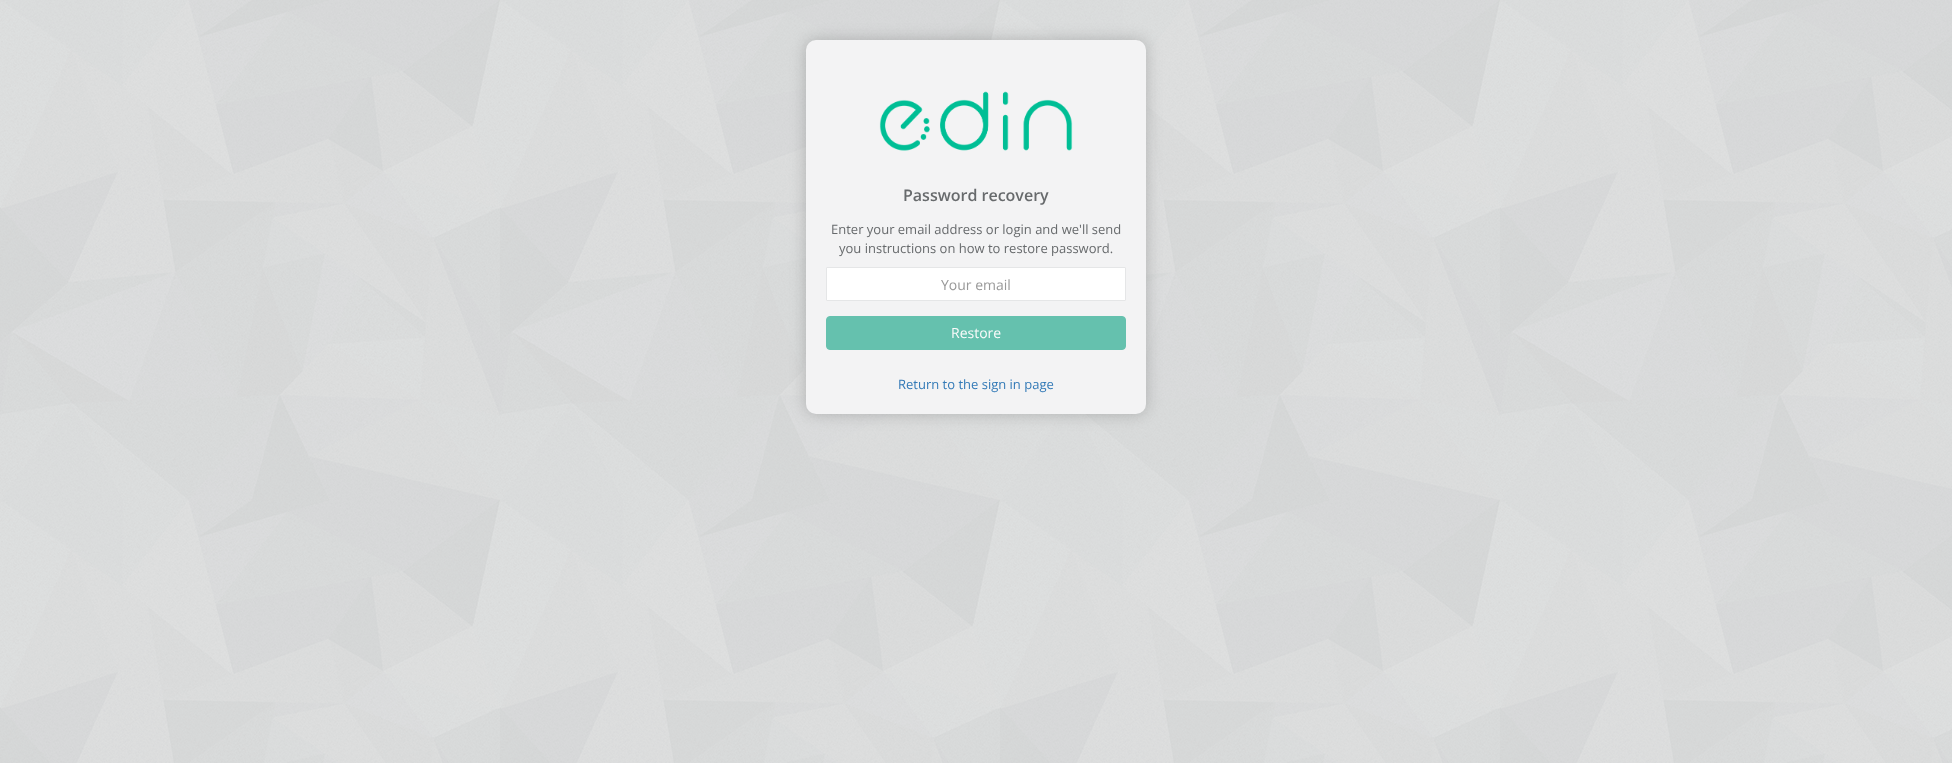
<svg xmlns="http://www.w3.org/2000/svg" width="1952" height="763">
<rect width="100%" height="100%" fill="#fff"/>
<image x="0" y="0" width="1952" height="763" href="media/1.png"/>
<rect x="806" y="40" width="340" height="374" rx="10" fill="#00000033" filter="blur(8px)"/>
<rect x="806" y="40" width="340" height="374" rx="10" fill="#f3f3f4"/>
<image x="879" y="91" width="194" height="60" href="media/2.png"/>
<text x="903" y="201" style="font-family:Open Sans;font-size:16px;font-weight:600;fill:#676a6c">Password recovery</text>
<text x="831" y="234" style="font-family:Open Sans;font-size:13px;fill:#676a6c">Enter your email address or login and we'll send</text>
<text x="839" y="253" style="font-family:Open Sans;font-size:13px;fill:#676a6c">you instructions on how to restore password.</text>
<rect x="826.5" y="267.5" width="299" height="33" rx="0.5" fill="#fff" stroke="#e5e6e7"/>
<text x="941" y="290" style="font-family:Open Sans;font-size:14px;fill:#999">Your email</text>
<rect x="826.5" y="316.5" width="299" height="33" rx="3.5" fill="#65c1ae" stroke="#65c1ae"/>
<text x="951" y="338" style="font-family:Open Sans;font-size:14px;fill:#fbfbfb">Restore</text>
<text x="898" y="389" style="font-family:Open Sans;font-size:13px;fill:#337ab7">Return to the sign in page</text>
</svg>
